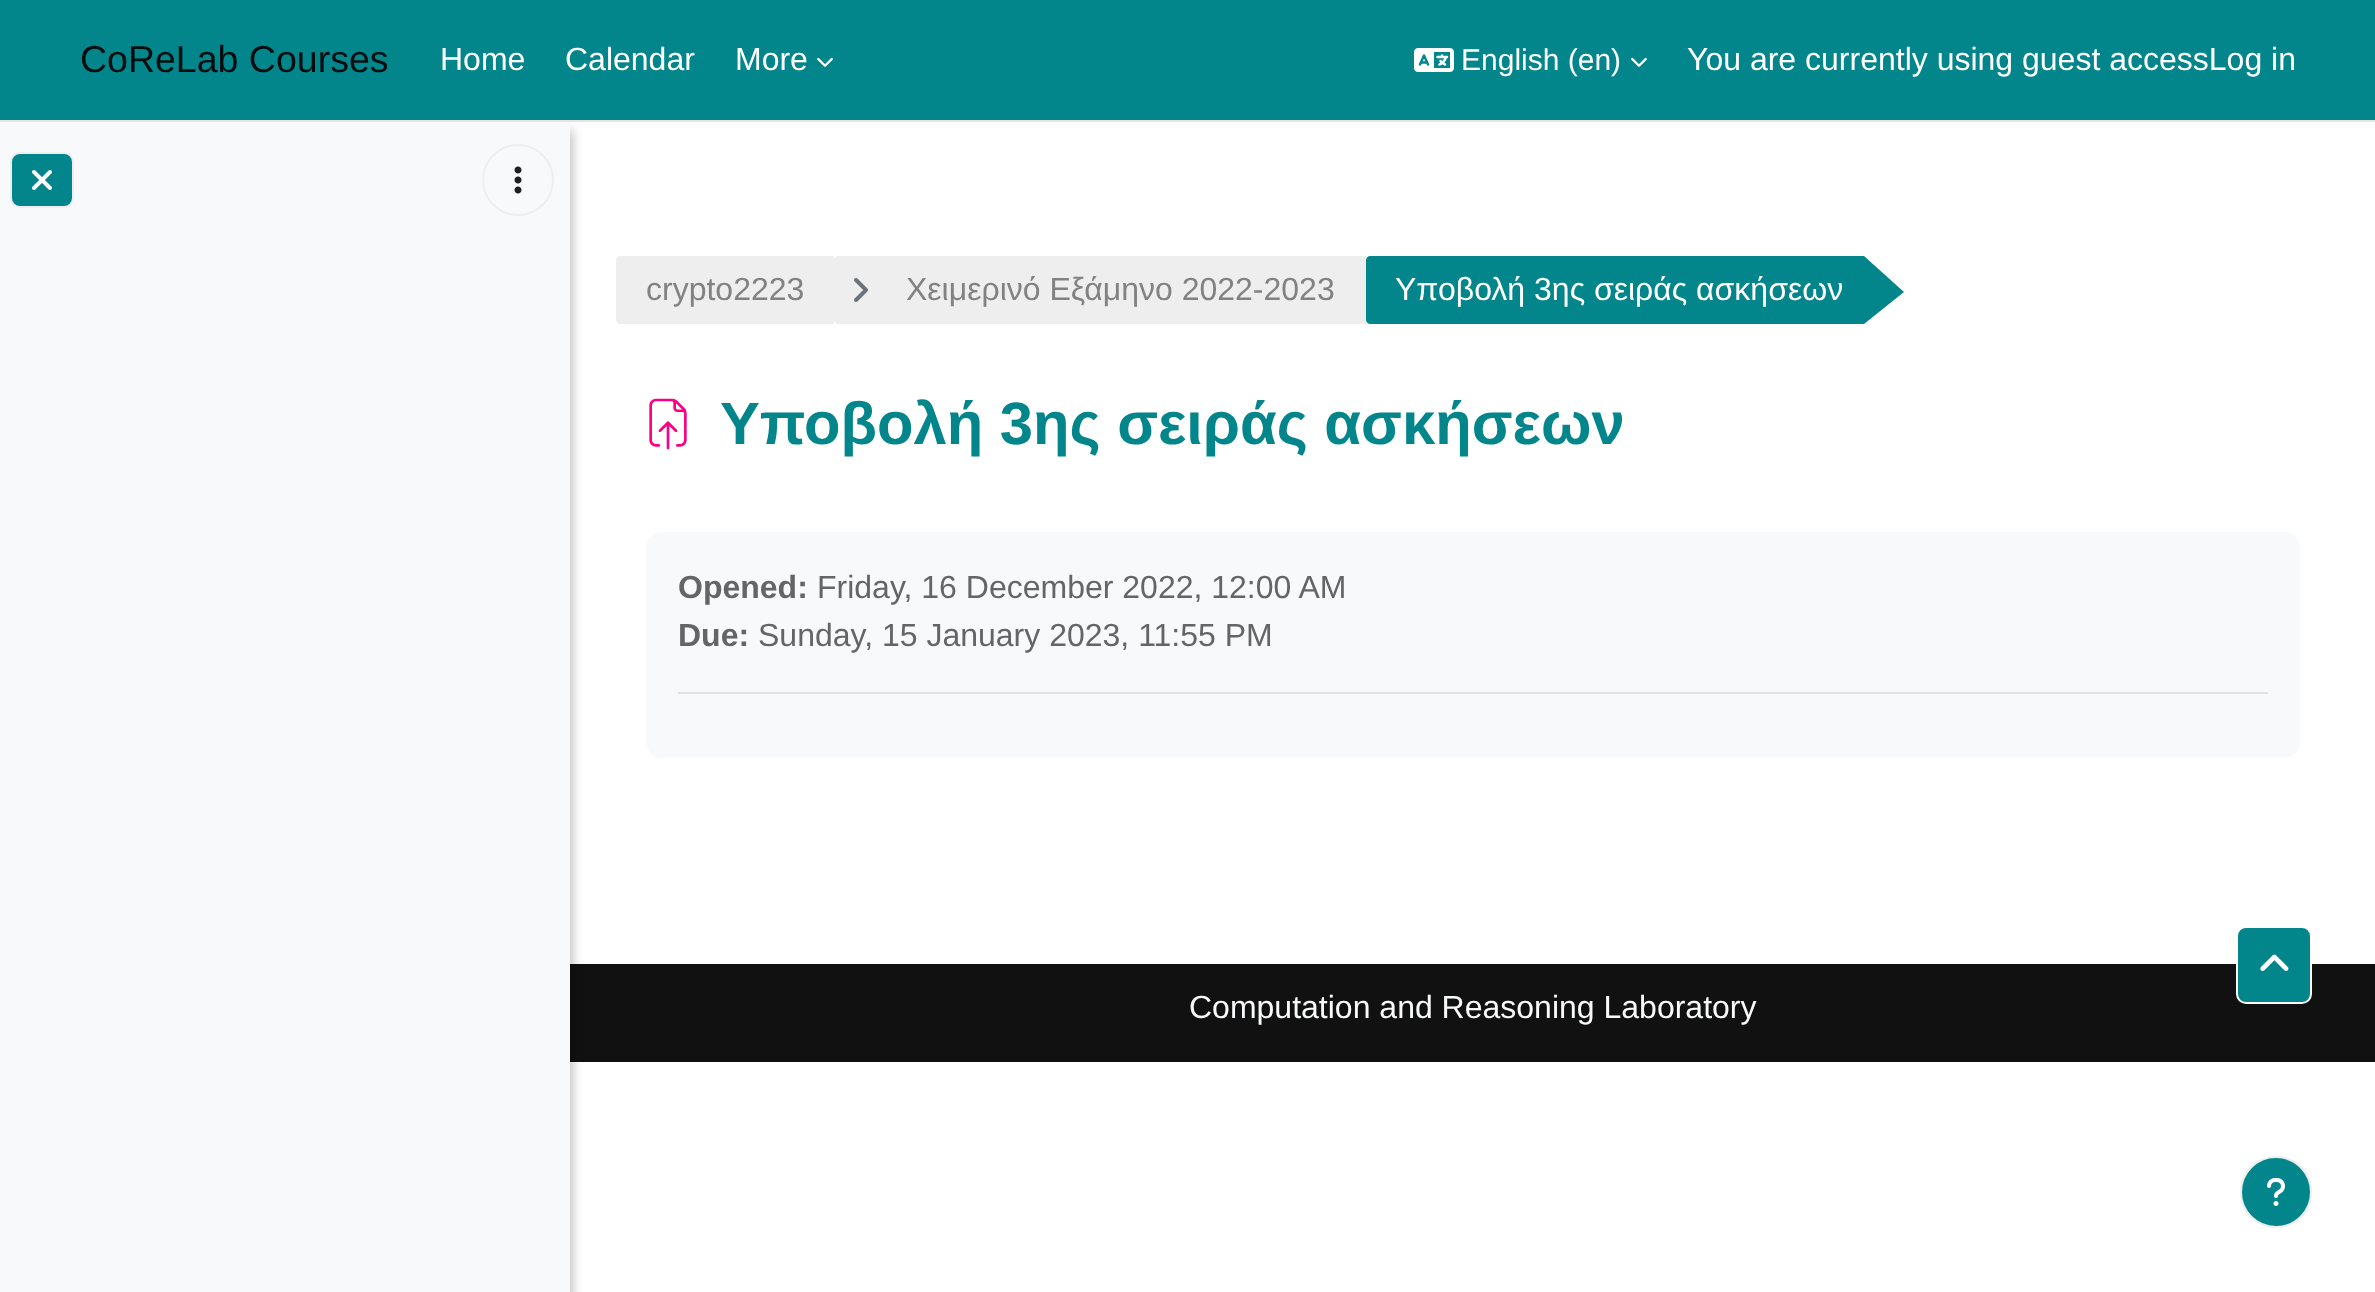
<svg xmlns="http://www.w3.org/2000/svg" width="2375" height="1292">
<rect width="100%" height="100%" fill="#fff"/>
<rect x="570" y="964" width="1805" height="98" fill="#111"/>
<rect x="4" y="130" width="570" height="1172" fill="#00000033" filter="blur(5px)"/>
<rect width="2375" height="120" fill="#02868c"/>
<rect y="120" width="2375" height="2" fill="#e8e3e3"/>
<text x="80" y="72" style="font-family:Liberation Sans;font-size:37.5px;fill:#000d0e">CoReLab Courses</text>
<text x="440" y="70" style="font-family:Liberation Sans;font-size:32px;fill:#fff">Home</text>
<text x="565" y="70" style="font-family:Liberation Sans;font-size:32px;fill:#fff">Calendar</text>
<text x="735" y="70" style="font-family:Liberation Sans;font-size:32px;fill:#fff">More</text>
<image x="817" y="57" width="16" height="10" href="media/1.png"/>
<image x="1414" y="48" width="40" height="24" href="media/2.png"/>
<text x="1461" y="70" style="font-family:Liberation Sans;font-size:30px;fill:#fff">English (en)</text>
<image x="1631" y="57" width="16" height="10" href="media/1.png"/>
<text x="1687" y="70" style="font-family:Liberation Sans;font-size:32px;fill:#fff">You are currently using guest accessLog in</text>
<rect y="122" width="570" height="1170" fill="#f8f9fa"/>
<rect x="11" y="153" width="62" height="54" rx="9" fill="#02868c" stroke="#eee" stroke-width="2"/>
<image x="32" y="170" width="20" height="20" href="media/3.png"/>
<circle cx="518" cy="180" r="35" fill="none" stroke="#eee" stroke-width="2"/>
<image x="514" y="166" width="8" height="28" href="media/4.png"/>
<path d="M620 256h214v68h-214c-2 0-4-2-4-4v-60c0-2 2-4 4-4z" fill="#eee"/>
<text x="646" y="300" style="font-family:Liberation Sans;font-size:32px;fill:#828282">crypto2223</text>
<path d="M838 256h528v68h-528c-2 0-4-2-4-4v-60c0-2 2-4 4-4z" fill="#eee"/>
<image x="854" y="278" width="14" height="24" href="media/5.png"/>
<text x="906" y="300" style="font-family:Liberation Sans;font-size:32px;fill:#828282">Χειμερινό Εξάμηνο 2022-2023</text>
<path d="M1370 256h494v68h-494c-2 0-4-2-4-4v-60c0-2 2-4 4-4z" fill="#02868c"/>
<text x="1395" y="300" style="font-family:Liberation Sans;font-size:32px;fill:#fff">Υποβολή 3ης σειράς ασκήσεων</text>
<path d="M1864 324v-68l40 36z" fill="#02868c"/>
<image x="649" y="398" width="38" height="52" href="media/6.png"/>
<text x="720" y="444" style="font-family:Liberation Sans;font-size:59.75px;font-weight:bold;fill:#02868c">Υποβολή 3ης σειράς ασκήσεων</text>
<rect x="646" y="532" width="1654" height="226" rx="16" fill="#f8f9fa"/>
<rect x="678" y="692" width="1590" height="2" fill="#dee2e6"/>
<text x="678" y="598" style="font-family:Liberation Sans;font-size:32px;font-weight:bold;fill:#656565">Opened:</text>
<text x="817" y="598" style="font-family:Liberation Sans;font-size:32px;fill:#656565">Friday, 16 December 2022, 12:00 AM</text>
<text x="678" y="646" style="font-family:Liberation Sans;font-size:32px;font-weight:bold;fill:#656565">Due:</text>
<text x="758" y="646" style="font-family:Liberation Sans;font-size:32px;fill:#656565">Sunday, 15 January 2023, 11:55 PM</text>
<rect x="2237" y="927" width="74" height="76" rx="9" fill="#02868c" stroke="#fff" stroke-width="2"/>
<image x="2260" y="954" width="29" height="17" href="media/7.png"/>
<text x="1189" y="1018" style="font-family:Liberation Sans;font-size:32px;fill:#f8f9fa">Computation and Reasoning Laboratory</text>
<circle cx="2276" cy="1192" r="35" fill="#02868c" stroke="#eee" stroke-width="2"/>
<image x="2267" y="1178" width="18" height="28" href="media/8.png"/>
</svg>
